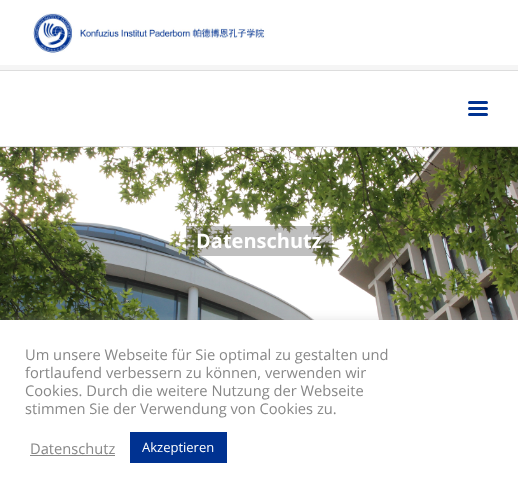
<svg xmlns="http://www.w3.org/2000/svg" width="518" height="493">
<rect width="100%" height="100%" fill="#fff"/>
<image x="0" y="13" width="518" height="52" href="media/1.png"/>
<rect y="146" width="518" height="1" fill="#ddd"/>
<rect y="65" width="518" height="5" fill="#f5f5f5"/>
<rect y="70" width="518" height="1" fill="#ddd"/>
<rect x="468" y="101" width="20" height="3" rx="1.5" fill="#003291"/>
<rect x="468" y="107" width="20" height="3" rx="1.5" fill="#003291"/>
<rect x="468" y="113" width="20" height="3" rx="1.5" fill="#003291"/>
<image x="0" y="147" width="518" height="173" href="media/2.png"/>
<rect x="186" y="226" width="146" height="30" fill="#00000040"/>
<text x="196" y="248" style="font-family:Open Sans;font-size:20px;font-weight:bold;fill:#fff">Datenschutz</text>
<rect y="319" width="518" height="173" fill="#acabab4d" filter="blur(5px)"/>
<rect y="320" width="518" height="173" fill="#fff"/>
<text x="25" y="360" style="font-family:Open Sans;font-size:14.7px;fill:#888">Um unsere Webseite für Sie optimal zu gestalten und</text>
<text x="25" y="378" style="font-family:Open Sans;font-size:14.7px;fill:#888">fortlaufend verbessern zu können, verwenden wir</text>
<text x="25" y="396" style="font-family:Open Sans;font-size:14.7px;fill:#888">Cookies. Durch die weitere Nutzung der Webseite</text>
<text x="25" y="414" style="font-family:Open Sans;font-size:14.7px;fill:#888">stimmen Sie der Verwendung von Cookies zu.</text>
<text x="30" y="454" style="font-family:Open Sans;font-size:14.7px;fill:#888">Datenschutz</text>
<rect x="30" y="455" width="85" height="1" fill="#888"/>
<rect x="130" y="432" width="97" height="31" fill="#003291"/>
<text x="142" y="452" style="font-family:Open Sans;font-size:13px;fill:#fff">Akzeptieren</text>
</svg>
